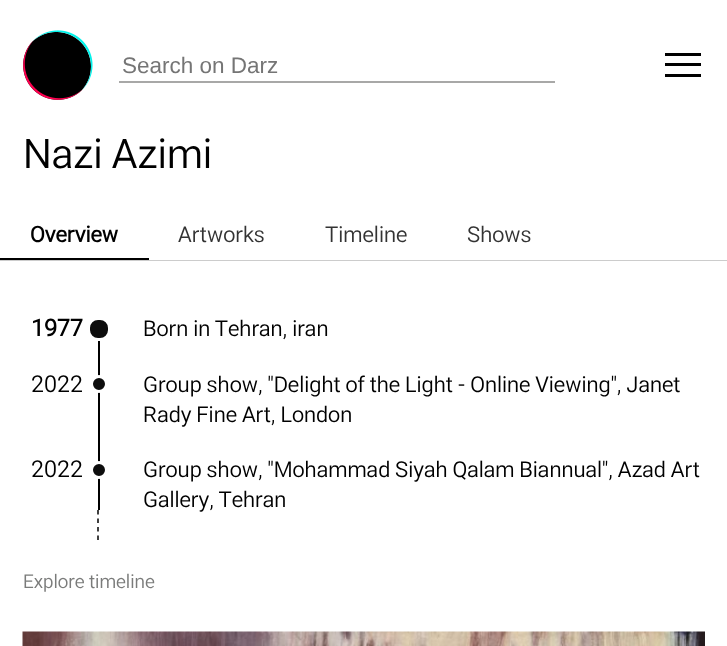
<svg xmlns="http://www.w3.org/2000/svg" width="727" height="646">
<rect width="100%" height="100%" fill="#fff"/>
<image x="23" y="30" width="70" height="70" href="media/1.png"/>
<rect x="119" y="81" width="436" height="2" fill="#a8a8a7"/>
<text x="122" y="73" style="font-family:Liberation Sans;font-size:22.5px;fill:#757575">Search on Darz</text>
<rect x="665" y="53" width="36" height="3" fill="#000"/>
<rect x="665" y="63" width="36" height="3" fill="#000"/>
<rect x="665" y="74" width="36" height="3" fill="#000"/>
<text x="23" y="168" style="font-family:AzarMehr;font-size:42px;fill:#000">Nazi Azimi</text>
<rect y="258" width="149" height="2" fill="#000"/>
<text x="30" y="242" style="font-family:AzarMehr;font-size:22.5px;font-weight:bold;fill:#000">Overview</text>
<text x="178" y="242" style="font-family:AzarMehr;font-size:22.5px;fill:#333">Artworks</text>
<text x="325" y="242" style="font-family:AzarMehr;font-size:22.5px;fill:#333">Timeline</text>
<text x="467" y="242" style="font-family:AzarMehr;font-size:22.5px;fill:#333">Shows</text>
<rect y="260" width="727" height="1" fill="#ccc"/>
<text x="31" y="336" style="font-family:AzarMehr;font-size:24px;font-weight:bold;fill:#000">1977</text>
<rect x="88.5" y="318.5" width="21" height="21" rx="9.5" fill="#0d0d0d" stroke="#fff" stroke-width="3"/>
<text x="143" y="336" style="font-family:AzarMehr;font-size:22.5px;fill:#000">Born in Tehran, iran</text>
<rect x="98" y="341" width="2" height="169" fill="#000"/>
<text x="31" y="392" style="font-family:AzarMehr;font-size:24px;fill:#000">2022</text>
<circle cx="99" cy="384" r="7.5" fill="#0d0d0d" stroke="#fff" stroke-width="3"/>
<text x="143" y="392" style="font-family:AzarMehr;font-size:22.5px;fill:#000">Group show, "Delight of the Light - Online Viewing", Janet</text>
<text x="143" y="422" style="font-family:AzarMehr;font-size:22.5px;fill:#000">Rady Fine Art, London</text>
<text x="31" y="477" style="font-family:AzarMehr;font-size:24px;fill:#000">2022</text>
<circle cx="99" cy="470" r="7.5" fill="#0d0d0d" stroke="#fff" stroke-width="3"/>
<text x="143" y="477" style="font-family:AzarMehr;font-size:22.5px;fill:#000">Group show, "Mohammad Siyah Qalam Biannual", Azad Art</text>
<text x="143" y="507" style="font-family:AzarMehr;font-size:22.5px;fill:#000">Gallery, Tehran</text>
<path d="M98 510v30" fill="none" stroke="#000" stroke-width="1.5" stroke-dasharray="4.5 4"/>
<text x="23" y="588" style="font-family:AzarMehr;font-size:19.5px;fill:#7a7b7a">Explore timeline</text>
<image x="22" y="631" width="683" height="15" href="media/2.png"/>
</svg>
